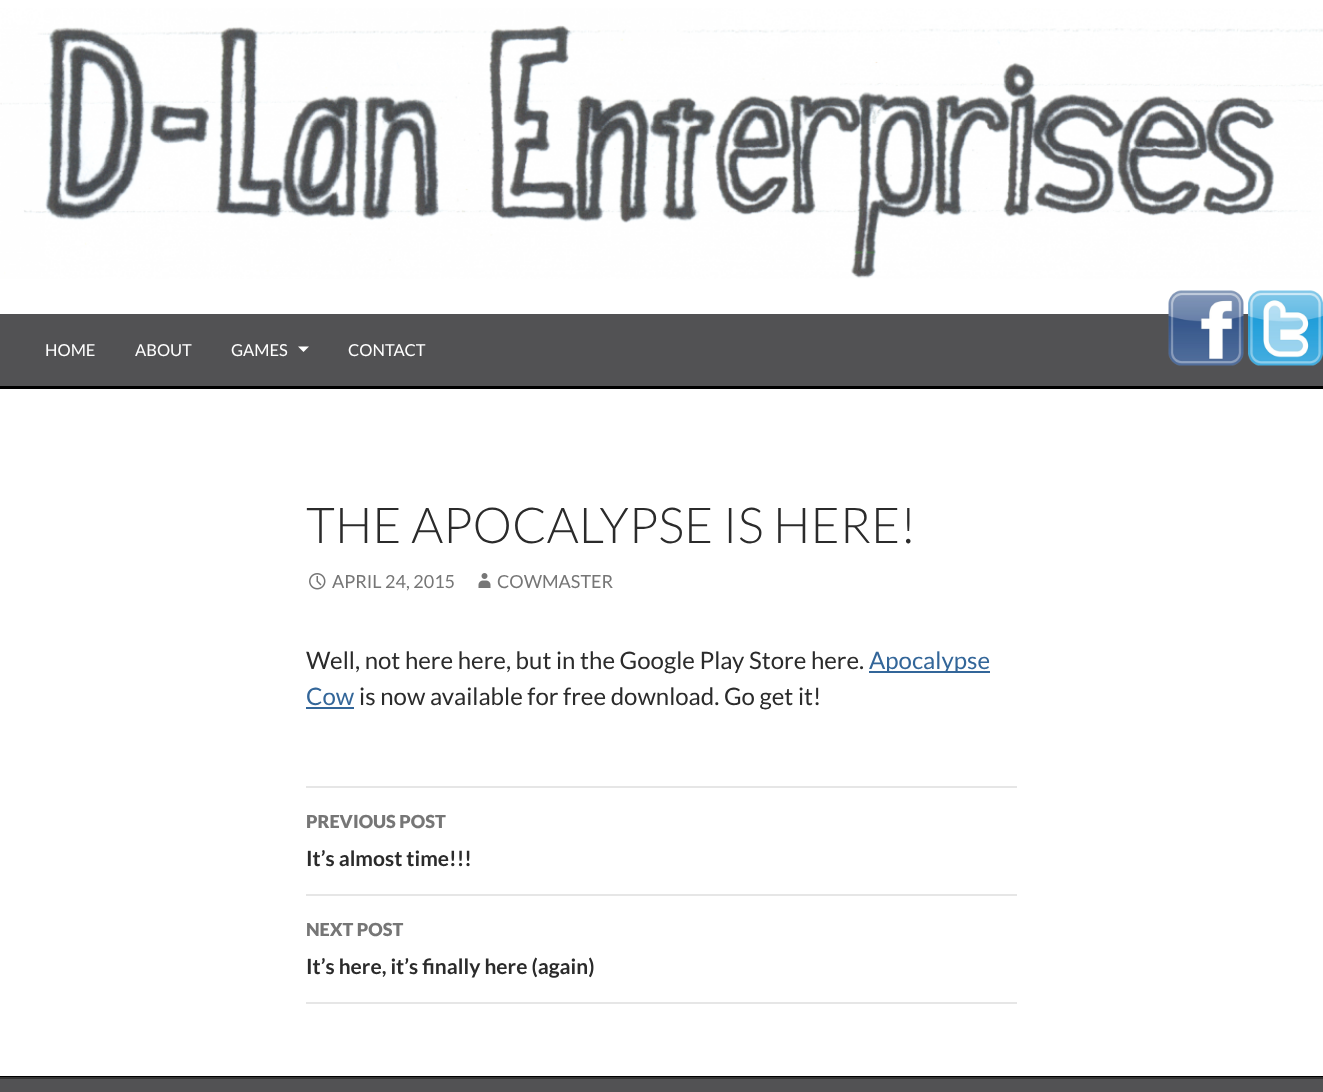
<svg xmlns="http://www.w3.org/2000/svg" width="1323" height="1092">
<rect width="100%" height="100%" fill="#fff"/>
<image x="0" y="8" width="1323" height="271" href="media/1.png"/>
<rect y="386" width="1323" height="3" fill="#000"/>
<rect y="314" width="1323" height="72" fill="#525254"/>
<text x="45" y="356" style="font-family:Lato;font-size:16.5px;fill:#fff">HOME</text>
<text x="135" y="356" style="font-family:Lato;font-size:16.5px;fill:#fff">ABOUT</text>
<text x="231" y="356" style="font-family:Lato;font-size:16.5px;fill:#fff">GAMES</text>
<path d="M298 346.5l5.5 5.5l5.5-5.5z" fill="#fff"/>
<text x="348" y="356" style="font-family:Lato;font-size:16.5px;fill:#fff">CONTACT</text>
<image x="1168" y="290" width="76" height="76" href="media/2.png"/>
<image x="1248" y="290" width="75" height="76" href="media/3.png"/>
<text x="306" y="543" style="font-family:Lato;font-size:49.5px;font-weight:300;fill:#2b2b2b">THE APOCALYPSE IS HERE!</text>
<image x="309" y="573" width="17" height="17" href="media/4.png"/>
<text x="332" y="588" style="font-family:Lato;font-size:18px;fill:#767676">APRIL 24, 2015</text>
<image x="478" y="573" width="13" height="15" href="media/5.png"/>
<text x="497" y="588" style="font-family:Lato;font-size:18px;fill:#767676">COWMASTER</text>
<text x="306" y="669" style="font-family:Lato;font-size:24px;fill:#2b2b2b">Well, not here here, but in the Google Play Store here.</text>
<rect x="869" y="671" width="121" height="2" fill="#369"/>
<text x="869" y="669" style="font-family:Lato;font-size:24px;fill:#369">Apocalypse</text>
<text x="306" y="705" style="font-family:Lato;font-size:24px;fill:#369">Cow</text>
<rect x="306" y="707" width="48" height="2" fill="#369"/>
<text x="359" y="705" style="font-family:Lato;font-size:24px;fill:#2b2b2b">is now available for free download. Go get it!</text>
<rect x="306" y="786" width="711" height="2" fill="#e6e6e6"/>
<rect x="306" y="894" width="711" height="2" fill="#e6e6e6"/>
<text x="306" y="828" style="font-family:Lato;font-size:18px;font-weight:900;fill:#767676">PREVIOUS POST</text>
<text x="306" y="866" style="font-family:Lato;font-size:21px;font-weight:bold;fill:#2b2b2b">It’s almost time!!!</text>
<rect x="306" y="1002" width="711" height="2" fill="#e6e6e6"/>
<text x="306" y="936" style="font-family:Lato;font-size:18px;font-weight:900;fill:#767676">NEXT POST</text>
<text x="306" y="974" style="font-family:Lato;font-size:21px;font-weight:bold;fill:#2b2b2b">It’s here, it’s finally here (again)</text>
<rect y="1076" width="1323" height="1" fill="#000"/>
<rect y="1077" width="1323" height="2" fill="#333"/>
<rect y="1079" width="1323" height="13" fill="#525254"/>
</svg>
